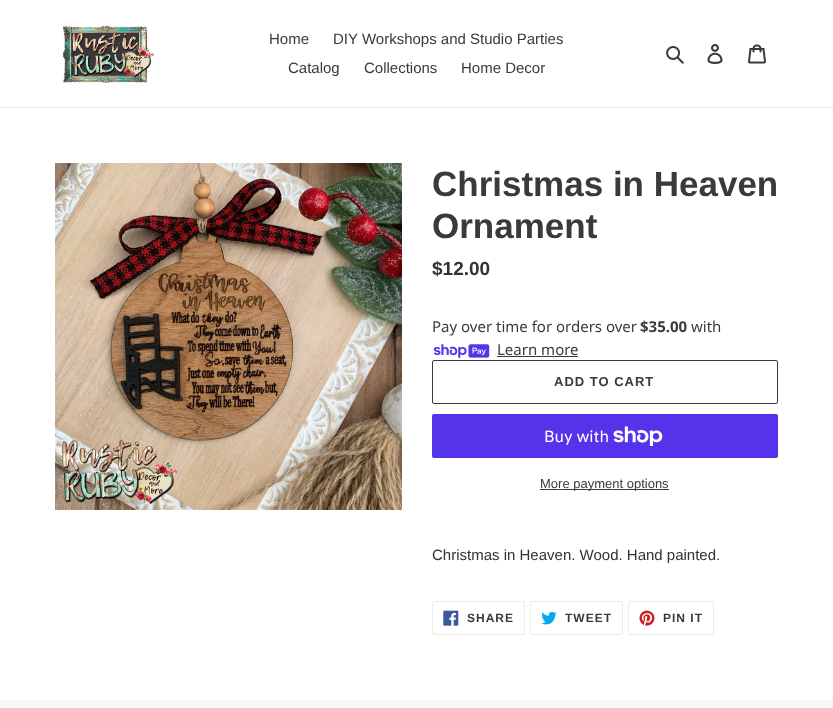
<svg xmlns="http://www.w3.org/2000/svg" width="833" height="708">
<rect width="100%" height="100%" fill="#fff"/>
<rect y="107" width="833" height="1" fill="#ebebeb"/>
<image x="62" y="25" width="93" height="58" href="media/1.png"/>
<text x="269" y="44" style="font-family:Liberation Sans;font-size:15px;fill:#3a3a3a">Home</text>
<text x="333" y="44" style="font-family:Liberation Sans;font-size:15px;fill:#3a3a3a">DIY Workshops and Studio Parties</text>
<text x="288" y="73" style="font-family:Liberation Sans;font-size:15px;fill:#3a3a3a">Catalog</text>
<text x="364" y="73" style="font-family:Liberation Sans;font-size:15px;fill:#3a3a3a">Collections</text>
<text x="461" y="73" style="font-family:Liberation Sans;font-size:15px;fill:#3a3a3a">Home Decor</text>
<image x="666" y="46" width="18" height="18" href="media/2.png"/>
<image x="707" y="44" width="16" height="20" href="media/3.png"/>
<image x="748" y="44" width="18" height="20" href="media/4.png"/>
<image x="55" y="163" width="347" height="347" href="media/5.png"/>
<text x="432" y="196" style="font-family:Liberation Sans;font-size:35px;font-weight:bold;fill:#3a3a3a">Christmas in Heaven</text>
<text x="432" y="238" style="font-family:Liberation Sans;font-size:35px;font-weight:bold;fill:#3a3a3a">Ornament</text>
<text x="432" y="275" style="font-family:Liberation Sans;font-size:19px;font-weight:bold;fill:#333232">$12.00</text>
<text x="432" y="332" style="font-family:Noto Sans;font-size:15px;fill:#3a3a3a">Pay over time for orders over</text>
<text x="640" y="332" style="font-family:Noto Sans;font-size:15px;font-weight:bold;fill:#3a3a3a">$35.00</text>
<text x="691" y="332" style="font-family:Noto Sans;font-size:15px;fill:#3a3a3a">with</text>
<image x="433" y="344" width="57" height="14" href="media/6.png"/>
<text x="497" y="355" style="font-family:Noto Sans;font-size:15px;fill:#3a3a3a">Learn more</text>
<rect x="497" y="356" width="81" height="1" fill="#3a3a3a"/>
<rect x="432.5" y="360.5" width="345" height="43" rx="1.5" fill="none" stroke="#3a3a3a"/>
<text x="554" y="386" style="font-family:Liberation Sans;font-size:13px;font-weight:bold;letter-spacing:1px;fill:#3a3a3a">ADD TO CART</text>
<rect x="432" y="414" width="346" height="44" rx="2" fill="#5433eb"/>
<text x="544" y="442" style="font-family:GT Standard;font-size:16px;fill:#fff">Buy with</text>
<image x="613" y="426" width="50" height="20" href="media/7.png"/>
<rect x="540" y="489" width="129" height="1" fill="#3a3a3a"/>
<text x="540" y="488" style="font-family:Liberation Sans;font-size:13px;fill:#3a3a3a">More payment options</text>
<text x="432" y="560" style="font-family:Liberation Sans;font-size:15px;fill:#333232">Christmas in Heaven. Wood. Hand painted.</text>
<rect x="432.5" y="601.5" width="92" height="33" rx="1.5" fill="none" stroke="#ebebeb"/>
<image x="443" y="610" width="16" height="16" href="media/8.png"/>
<text x="467" y="622" style="font-family:Liberation Sans;font-size:12px;font-weight:bold;letter-spacing:1px;fill:#3a3a3a">SHARE</text>
<rect x="530.5" y="601.5" width="92" height="33" rx="1.5" fill="none" stroke="#ebebeb"/>
<image x="541" y="611" width="16" height="14" href="media/9.png"/>
<text x="565" y="622" style="font-family:Liberation Sans;font-size:12px;font-weight:bold;letter-spacing:1px;fill:#3a3a3a">TWEET</text>
<rect x="628.5" y="601.5" width="85" height="33" rx="1.5" fill="none" stroke="#ebebeb"/>
<image x="639" y="610" width="16" height="16" href="media/10.png"/>
<text x="663" y="622" style="font-family:Liberation Sans;font-size:12px;font-weight:bold;letter-spacing:1px;fill:#3a3a3a">PIN IT</text>
<rect y="700" width="833" height="8" fill="#f6f6f6"/>
</svg>
